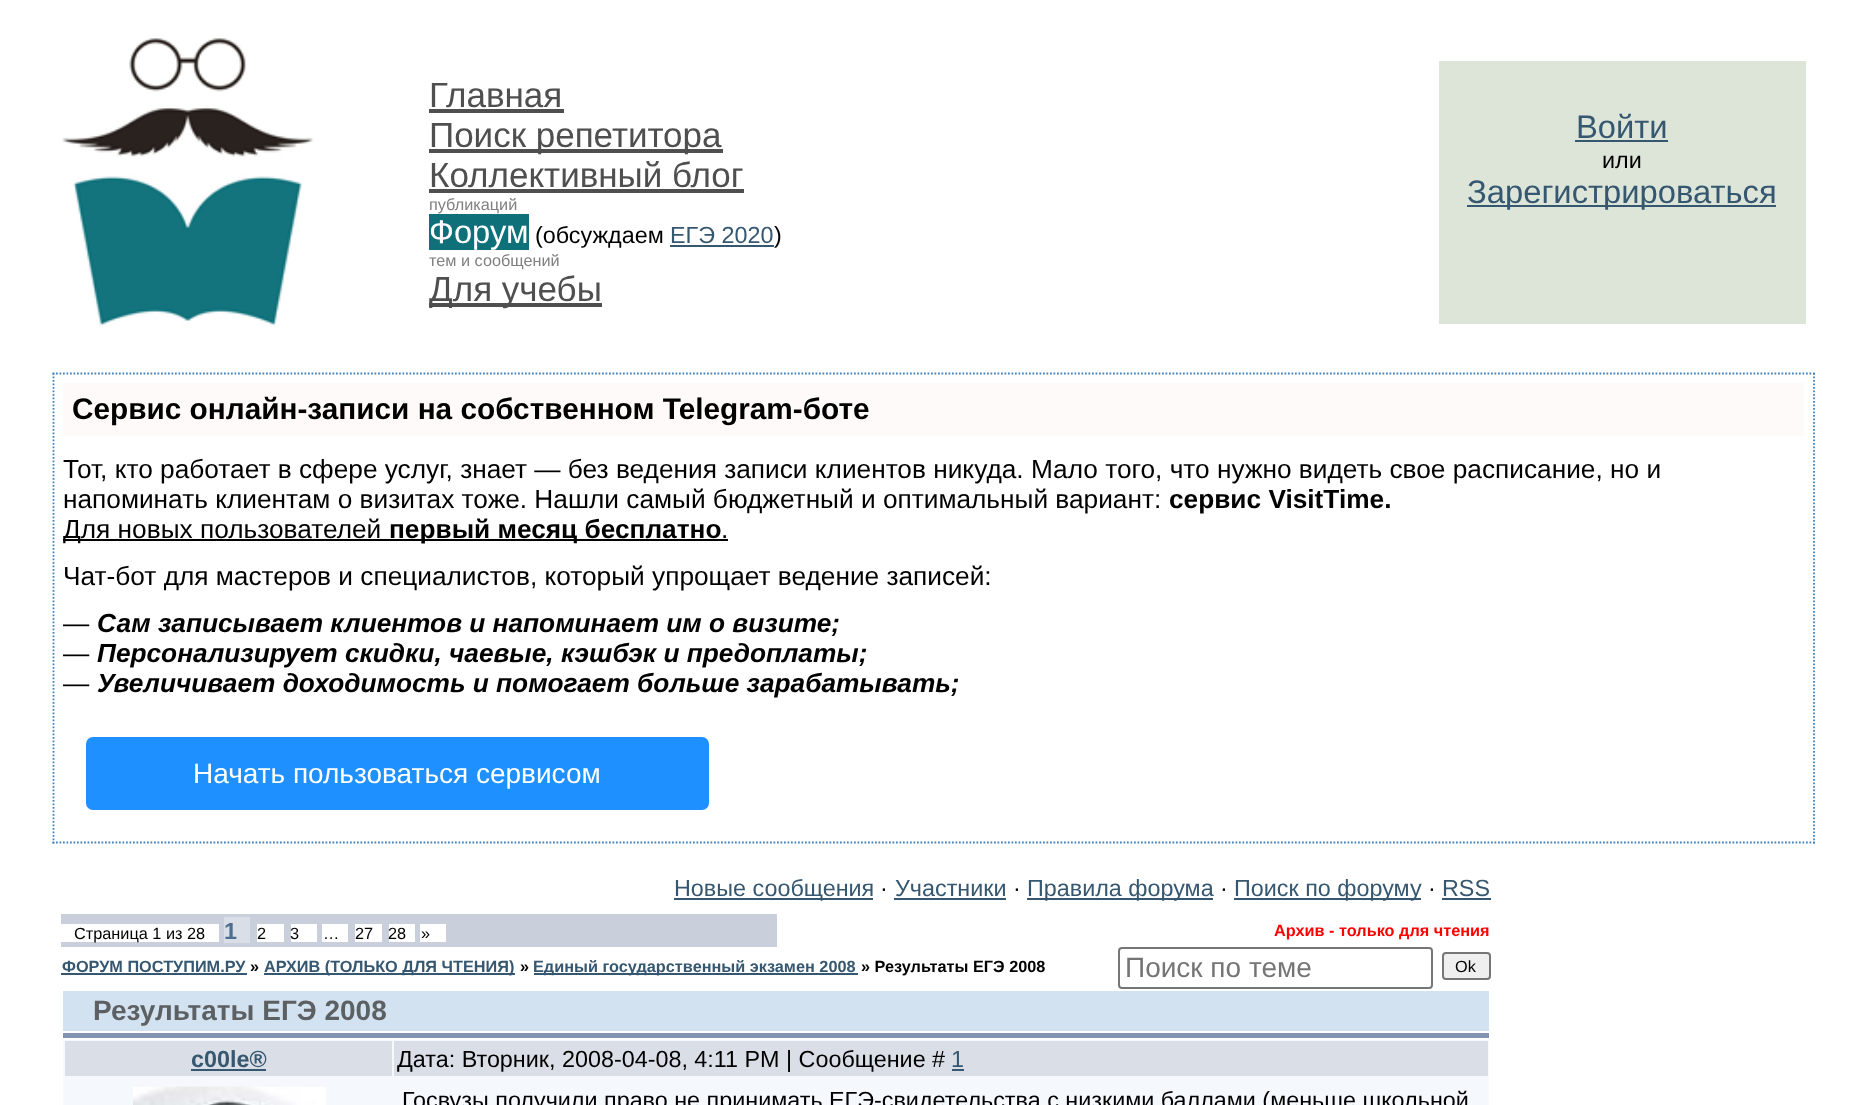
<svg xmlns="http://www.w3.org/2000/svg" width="1867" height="1105">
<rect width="100%" height="100%" fill="#fff"/>
<image x="62" y="38" width="252" height="288" href="media/1.png"/>
<text x="429" y="107" style="font-family:Liberation Sans;font-size:35px;fill:#4f4f4f">Главная</text>
<rect x="429" y="109" width="135" height="4" fill="#4f4f4f"/>
<rect x="429" y="149" width="294" height="4" fill="#4f4f4f"/>
<text x="429" y="147" style="font-family:Liberation Sans;font-size:35px;fill:#4f4f4f">Поиск репетитора</text>
<text x="429" y="187" style="font-family:Liberation Sans;font-size:35px;fill:#4f4f4f">Коллективный блог</text>
<rect x="429" y="189" width="315" height="4" fill="#4f4f4f"/>
<text x="429" y="210" style="font-family:Liberation Sans;font-size:16.25px;fill:#808080">публикаций</text>
<rect x="429" y="214" width="100" height="36" fill="#0e717a"/>
<text x="429" y="243" style="font-family:Liberation Sans;font-size:32.75px;fill:#fff">Форум</text>
<text x="535" y="243" style="font-family:Liberation Sans;font-size:23.35px;fill:#000">(обсуждаем</text>
<text x="670" y="243" style="font-family:Liberation Sans;font-size:23.35px;fill:#365770">ЕГЭ 2020</text>
<rect x="670" y="245" width="104" height="2" fill="#365770"/>
<text x="774" y="243" style="font-family:Liberation Sans;font-size:23.35px;fill:#000">)</text>
<text x="429" y="266" style="font-family:Liberation Sans;font-size:16.25px;fill:#808080">тем и сообщений</text>
<rect x="429" y="303" width="173" height="4" fill="#4f4f4f"/>
<text x="429" y="301" style="font-family:Liberation Sans;font-size:35px;fill:#4f4f4f">Для учебы</text>
<rect x="1439" y="61" width="367" height="263" fill="#dde5d9"/>
<text x="1576" y="138" style="font-family:Liberation Sans;font-size:32.75px;fill:#365770">Войти</text>
<rect x="1575" y="140" width="93" height="2" fill="#365770"/>
<text x="1602" y="168" style="font-family:Liberation Sans;font-size:23.35px;fill:#000">или</text>
<rect x="1467" y="205" width="309" height="2" fill="#365770"/>
<text x="1467" y="203" style="font-family:Liberation Sans;font-size:32.75px;fill:#365770">Зарегистрироваться</text>
<path d="M52.5 373.5h1762.5" fill="none" stroke="#4682b4" stroke-width="1.8" stroke-dasharray="1.75 1.75"/>
<path d="M1814 373v470.5" fill="none" stroke="#4682b4" stroke-width="1.8" stroke-dasharray="1.75 1.75"/>
<path d="M52.5 842.5h1762.5" fill="none" stroke="#4682b4" stroke-width="1.8" stroke-dasharray="1.75 1.75"/>
<path d="M53.5 373v470.5" fill="none" stroke="#4682b4" stroke-width="1.8" stroke-dasharray="1.75 1.75"/>
<rect x="63" y="383" width="1741" height="53" fill="#fffafa"/>
<text x="72" y="419" style="font-family:Liberation Sans;font-size:29.75px;font-weight:bold;fill:#000">Сервис онлайн-записи на собственном Telegram-боте</text>
<text x="63" y="478" style="font-family:Liberation Sans;font-size:26.25px;fill:#000">Тот, кто работает в сфере услуг, знает — без ведения записи клиентов никуда. Мало того, что нужно видеть свое расписание, но и</text>
<text x="63" y="508" style="font-family:Liberation Sans;font-size:26.25px;fill:#000">напоминать клиентам о визитах тоже. Нашли самый бюджетный и оптимальный вариант:</text>
<text x="1169" y="508" style="font-family:Liberation Sans;font-size:26.25px;font-weight:bold;fill:#000">сервис VisitTime.</text>
<rect x="63" y="539" width="665" height="2" fill="#000"/>
<text x="63" y="538" style="font-family:Liberation Sans;font-size:26.25px;fill:#000">Для новых пользователей</text>
<text x="389" y="538" style="font-family:Liberation Sans;font-size:26.25px;font-weight:bold;fill:#000">первый месяц бесплатно</text>
<text x="721" y="538" style="font-family:Liberation Sans;font-size:26.25px;fill:#000">.</text>
<text x="63" y="585" style="font-family:Liberation Sans;font-size:26.25px;fill:#000">Чат-бот для мастеров и специалистов, который упрощает ведение записей:</text>
<text x="63" y="632" style="font-family:Liberation Sans;font-size:26.25px;fill:#000">—</text>
<text x="97" y="632" style="font-family:Liberation Sans;font-size:26.25px;font-weight:bold;font-style:italic;fill:#000">Сам записывает клиентов и напоминает им о визите;</text>
<text x="63" y="662" style="font-family:Liberation Sans;font-size:26.25px;fill:#000">—</text>
<text x="97" y="662" style="font-family:Liberation Sans;font-size:26.25px;font-weight:bold;font-style:italic;fill:#000">Персонализирует скидки, чаевые, кэшбэк и предоплаты;</text>
<text x="63" y="692" style="font-family:Liberation Sans;font-size:26.25px;fill:#000">—</text>
<text x="97" y="692" style="font-family:Liberation Sans;font-size:26.25px;font-weight:bold;font-style:italic;fill:#000">Увеличивает доходимость и помогает больше зарабатывать;</text>
<rect x="85" y="736" width="625" height="75" rx="8" fill="#1e90ff" stroke="#fff" stroke-width="2"/>
<text x="193" y="783" style="font-family:Liberation Sans;font-size:28px;fill:#fff">Начать пользоваться сервисом</text>
<rect x="674" y="898" width="199" height="2" fill="#365770"/>
<text x="674" y="896" style="font-family:Liberation Sans;font-size:23.35px;fill:#365770">Новые сообщения</text>
<text x="880" y="896" style="font-family:Liberation Sans;font-size:23.35px;fill:#000">·</text>
<text x="895" y="896" style="font-family:Liberation Sans;font-size:23.35px;fill:#365770">Участники</text>
<rect x="894" y="898" width="112" height="2" fill="#365770"/>
<text x="1013" y="896" style="font-family:Liberation Sans;font-size:23.35px;fill:#000">·</text>
<rect x="1027" y="898" width="186" height="2" fill="#365770"/>
<text x="1027" y="896" style="font-family:Liberation Sans;font-size:23.35px;fill:#365770">Правила форума</text>
<text x="1220" y="896" style="font-family:Liberation Sans;font-size:23.35px;fill:#000">·</text>
<rect x="1234" y="898" width="187" height="2" fill="#365770"/>
<text x="1234" y="896" style="font-family:Liberation Sans;font-size:23.35px;fill:#365770">Поиск по форуму</text>
<text x="1428" y="896" style="font-family:Liberation Sans;font-size:23.35px;fill:#000">·</text>
<text x="1442" y="896" style="font-family:Liberation Sans;font-size:23.35px;fill:#365770">RSS</text>
<rect x="1442" y="898" width="49" height="2" fill="#365770"/>
<rect x="61" y="914" width="716" height="33" fill="#c9d0db"/>
<rect x="61" y="924" width="158" height="18" fill="#fff"/>
<text x="74" y="939" style="font-family:Liberation Sans;font-size:16.3px;fill:#000">Страница 1 из 28</text>
<rect x="224" y="917" width="26" height="26" fill="#dadfe7"/>
<text x="224" y="939" style="font-family:Liberation Sans;font-size:23.35px;font-weight:bold;fill:#4d6d91">1</text>
<rect x="257" y="924" width="27" height="18" fill="#fff"/>
<text x="257" y="939" style="font-family:Liberation Sans;font-size:16.3px;fill:#000">2</text>
<rect x="291" y="924" width="26" height="18" fill="#fff"/>
<text x="290" y="939" style="font-family:Liberation Sans;font-size:16.3px;fill:#000">3</text>
<rect x="322" y="924" width="26" height="18" fill="#fff"/>
<text x="323" y="939" style="font-family:Liberation Sans;font-size:16.3px;fill:#000">…</text>
<rect x="355" y="924" width="27" height="18" fill="#fff"/>
<text x="355" y="939" style="font-family:Liberation Sans;font-size:16.3px;fill:#000">27</text>
<rect x="389" y="924" width="26" height="18" fill="#fff"/>
<text x="388" y="939" style="font-family:Liberation Sans;font-size:16.3px;fill:#000">28</text>
<rect x="420" y="924" width="26" height="18" fill="#fff"/>
<text x="421" y="939" style="font-family:Liberation Sans;font-size:16.3px;fill:#000">»</text>
<text x="1274" y="936" style="font-family:Liberation Sans;font-size:16.3px;font-weight:bold;fill:#f00">Архив - только для чтения</text>
<text x="62" y="972" style="font-family:Liberation Sans;font-size:16.3px;font-weight:bold;fill:#365770">ФОРУМ ПОСТУПИМ.РУ</text>
<rect x="61" y="973" width="186" height="2" fill="#365770"/>
<text x="250" y="972" style="font-family:Liberation Sans;font-size:16.3px;font-weight:bold;fill:#000">»</text>
<rect x="264" y="973" width="251" height="2" fill="#365770"/>
<text x="264" y="972" style="font-family:Liberation Sans;font-size:16.3px;font-weight:bold;fill:#365770">АРХИВ (ТОЛЬКО ДЛЯ ЧТЕНИЯ)</text>
<text x="520" y="972" style="font-family:Liberation Sans;font-size:16.3px;font-weight:bold;fill:#000">»</text>
<rect x="534" y="973" width="324" height="2" fill="#365770"/>
<text x="533" y="972" style="font-family:Liberation Sans;font-size:16.3px;font-weight:bold;fill:#365770">Единый государственный экзамен 2008</text>
<text x="861" y="972" style="font-family:Liberation Sans;font-size:16.3px;font-weight:bold;fill:#000">» Результаты ЕГЭ 2008</text>
<rect x="1119" y="948" width="313" height="40" rx="3" fill="none" stroke="#767676" stroke-width="2"/>
<text x="1125" y="977" style="font-family:Liberation Sans;font-size:28px;fill:#757575">Поиск по теме</text>
<rect x="1443" y="953" width="47" height="26" rx="3" fill="#efefef" stroke="#767676" stroke-width="2"/>
<text x="1455" y="972" style="font-family:Liberation Sans;font-size:16.3px;fill:#000">Ok</text>
<rect x="63" y="991" width="1426" height="40" fill="#d3e2f0"/>
<text x="93" y="1020" style="font-family:Liberation Sans;font-size:28px;font-weight:bold;fill:#5d6062">Результаты ЕГЭ 2008</text>
<rect x="63" y="1033" width="1426" height="5" fill="#8394b2"/>
<rect x="63" y="1040" width="1426" height="65" fill="#f5f9fd"/>
<rect x="65" y="1041" width="327" height="35" fill="#dadfe7"/>
<text x="191" y="1067" style="font-family:Liberation Sans;font-size:23.35px;font-weight:bold;fill:#365770">c00le®</text>
<rect x="191" y="1069" width="75" height="2" fill="#365770"/>
<rect x="394" y="1041" width="1094" height="35" fill="#dadfe7"/>
<text x="397" y="1067" style="font-family:Liberation Sans;font-size:23.35px;fill:#000">Дата: Вторник, 2008-04-08, 4:11 PM | Сообщение #</text>
<text x="951" y="1067" style="font-family:Liberation Sans;font-size:23.35px;fill:#365770">1</text>
<rect x="952" y="1069" width="12" height="2" fill="#365770"/>
<image x="133" y="1086" width="193" height="19" href="media/2.png"/>
<text x="402" y="1108" style="font-family:Liberation Sans;font-size:23.35px;fill:#000">Госвузы получили право не принимать ЕГЭ-свидетельства с низкими баллами (меньше школьной</text>
</svg>
